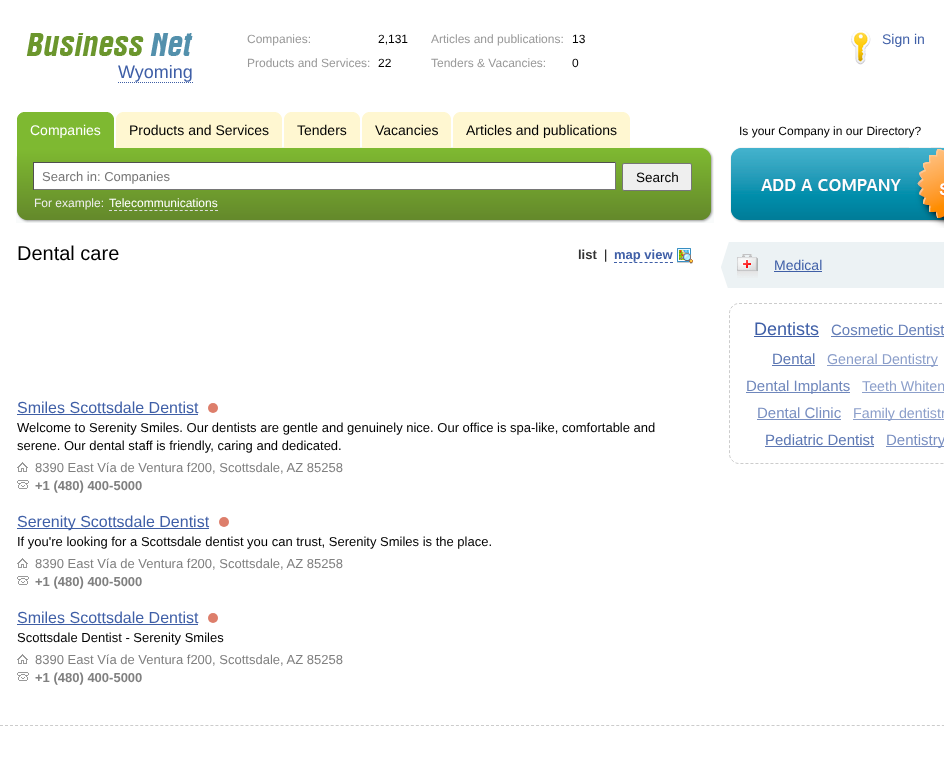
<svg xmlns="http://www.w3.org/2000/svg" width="944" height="761">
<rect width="100%" height="100%" fill="#fff"/>
<text x="247" y="43" style="font-family:Liberation Sans;font-size:12px;fill:#999">Companies:</text>
<text x="378" y="43" style="font-family:Liberation Sans;font-size:12px;fill:#000">2,131</text>
<text x="247" y="67" style="font-family:Liberation Sans;font-size:12px;fill:#999">Products and Services:</text>
<text x="378" y="67" style="font-family:Liberation Sans;font-size:12px;fill:#000">22</text>
<text x="431" y="43" style="font-family:Liberation Sans;font-size:12px;fill:#999">Articles and publications:</text>
<text x="572" y="43" style="font-family:Liberation Sans;font-size:12px;fill:#000">13</text>
<text x="431" y="67" style="font-family:Liberation Sans;font-size:12px;fill:#999">Tenders &amp; Vacancies:</text>
<text x="572" y="67" style="font-family:Liberation Sans;font-size:12px;fill:#000">0</text>
<image x="851" y="30" width="20" height="35" href="media/1.png"/>
<text x="882" y="44" style="font-family:Liberation Sans;font-size:14px;fill:#3f5fa7">Sign in</text>
<text x="118" y="78" style="font-family:Liberation Sans;font-size:18px;fill:#3f5fa7">Wyoming</text>
<image x="26" y="33" width="167" height="32" href="media/2.png"/>
<path d="M118 82.5h75" fill="none" stroke="#3f5fa6" stroke-dasharray="1 1"/>
<image x="17" y="147" width="685" height="76" href="media/7.png"/>
<rect x="17" y="112" width="97" height="36" fill="#7eb931"/>
<image x="108" y="112" width="6" height="6" href="media/3.png"/>
<image x="17" y="112" width="6" height="6" href="media/4.png"/>
<text x="30" y="135" style="font-family:Liberation Sans;font-size:14px;fill:#fff">Companies</text>
<rect x="116" y="112" width="166" height="36" fill="#fff7d1"/>
<image x="276" y="112" width="6" height="6" href="media/5.png"/>
<image x="116" y="112" width="6" height="6" href="media/6.png"/>
<text x="129" y="135" style="font-family:Liberation Sans;font-size:14px;fill:#000">Products and Services</text>
<rect x="284" y="112" width="76" height="36" fill="#fff7d1"/>
<image x="354" y="112" width="6" height="6" href="media/5.png"/>
<image x="284" y="112" width="6" height="6" href="media/6.png"/>
<text x="297" y="135" style="font-family:Liberation Sans;font-size:14px;fill:#000">Tenders</text>
<rect x="362" y="112" width="89" height="36" fill="#fff7d1"/>
<image x="445" y="112" width="6" height="6" href="media/5.png"/>
<image x="362" y="112" width="6" height="6" href="media/6.png"/>
<text x="375" y="135" style="font-family:Liberation Sans;font-size:14px;fill:#000">Vacancies</text>
<rect x="453" y="112" width="177" height="36" fill="#fff7d1"/>
<image x="624" y="112" width="6" height="6" href="media/5.png"/>
<image x="453" y="112" width="6" height="6" href="media/6.png"/>
<text x="466" y="135" style="font-family:Liberation Sans;font-size:14px;fill:#000">Articles and publications</text>
<image x="16" y="156" width="11" height="67" href="media/8.png"/>
<rect x="34" y="163" width="581" height="26" fill="#fff"/>
<rect x="33" y="162" width="583" height="1" fill="#4f4f4f"/>
<rect x="615" y="162" width="1" height="28" fill="#767676"/>
<rect x="33" y="189" width="583" height="1" fill="#767676"/>
<rect x="33" y="162" width="1" height="28" fill="#4f4f4f"/>
<text x="42" y="181" style="font-family:Liberation Sans;font-size:13px;fill:#757575">Search in: Companies</text>
<rect x="622.5" y="163.5" width="69" height="27" rx="1.5" fill="#efefef" stroke="#767676"/>
<text x="636" y="182" style="font-family:Liberation Sans;font-size:13.5px;fill:#000">Search</text>
<image x="702" y="147" width="12" height="76" href="media/9.png"/>
<text x="34" y="207" style="font-family:Liberation Sans;font-size:12px;fill:#eee">For example:</text>
<text x="109" y="207" style="font-family:Liberation Sans;font-size:12px;fill:#fff">Telecommunications</text>
<path d="M109 210.5h109" fill="none" stroke="#ddd" stroke-dasharray="3 2.05"/>
<text x="739" y="135" style="font-family:Liberation Sans;font-size:12px;fill:#000">Is your Company in our Directory?</text>
<image x="730" y="147" width="214" height="81" href="media/10.png"/>
<text x="17" y="260" style="font-family:Liberation Sans;font-size:20px;fill:#000">Dental care</text>
<text x="578" y="259" style="font-family:Liberation Sans;font-size:13px;font-weight:bold;fill:#333">list</text>
<text x="604" y="259" style="font-family:Liberation Sans;font-size:13px;fill:#000">|</text>
<text x="614" y="259" style="font-family:Liberation Sans;font-size:13px;font-weight:bold;fill:#3f5fa7">map view</text>
<path d="M614 262.5h59" fill="none" stroke="#3f5fa7" stroke-dasharray="3 2.09"/>
<image x="677" y="248" width="16" height="16" href="media/11.png"/>
<text x="17" y="413" style="font-family:Liberation Sans;font-size:16px;fill:#3f5fa7">Smiles Scottsdale Dentist</text>
<rect x="17" y="414" width="181" height="1" fill="#3f5fa6"/>
<circle cx="213" cy="408" r="5" fill="#dd7e6b"/>
<text x="17" y="432" style="font-family:Liberation Sans;font-size:13px;fill:#000">Welcome to Serenity Smiles. Our dentists are gentle and genuinely nice. Our office is spa-like, comfortable and</text>
<text x="17" y="450" style="font-family:Liberation Sans;font-size:13px;fill:#000">serene. Our dental staff is friendly, caring and dedicated.</text>
<image x="17" y="462" width="11" height="10" href="media/12.png"/>
<text x="35" y="472" style="font-family:Liberation Sans;font-size:13px;fill:#808080">8390 East Vía de Ventura f200, Scottsdale, AZ 85258</text>
<image x="17" y="480" width="12" height="9" href="media/13.png"/>
<text x="35" y="490" style="font-family:Liberation Sans;font-size:13px;font-weight:bold;fill:#808080">+1 (480) 400-5000</text>
<rect x="17" y="528" width="192" height="1" fill="#3f5fa6"/>
<text x="17" y="527" style="font-family:Liberation Sans;font-size:16px;fill:#3f5fa7">Serenity Scottsdale Dentist</text>
<circle cx="224" cy="522" r="5" fill="#dd7e6b"/>
<text x="17" y="546" style="font-family:Liberation Sans;font-size:13px;fill:#000">If you're looking for a Scottsdale dentist you can trust, Serenity Smiles is the place.</text>
<image x="17" y="558" width="11" height="10" href="media/12.png"/>
<text x="35" y="568" style="font-family:Liberation Sans;font-size:13px;fill:#808080">8390 East Vía de Ventura f200, Scottsdale, AZ 85258</text>
<image x="17" y="576" width="12" height="9" href="media/13.png"/>
<text x="35" y="586" style="font-family:Liberation Sans;font-size:13px;font-weight:bold;fill:#808080">+1 (480) 400-5000</text>
<text x="17" y="623" style="font-family:Liberation Sans;font-size:16px;fill:#3f5fa7">Smiles Scottsdale Dentist</text>
<rect x="17" y="624" width="181" height="1" fill="#3f5fa6"/>
<circle cx="213" cy="618" r="5" fill="#dd7e6b"/>
<text x="17" y="642" style="font-family:Liberation Sans;font-size:13px;fill:#000">Scottsdale Dentist - Serenity Smiles</text>
<image x="17" y="654" width="11" height="10" href="media/12.png"/>
<text x="35" y="664" style="font-family:Liberation Sans;font-size:13px;fill:#808080">8390 East Vía de Ventura f200, Scottsdale, AZ 85258</text>
<image x="17" y="672" width="12" height="9" href="media/13.png"/>
<text x="35" y="682" style="font-family:Liberation Sans;font-size:13px;font-weight:bold;fill:#808080">+1 (480) 400-5000</text>
<rect x="729" y="242" width="215" height="46" fill="#ecf2f4"/>
<image x="721" y="242" width="8" height="46" href="media/14.png"/>
<image x="737" y="254" width="21" height="24" href="media/15.png"/>
<text x="774" y="270" style="font-family:Liberation Sans;font-size:14px;fill:#3f5fa7">Medical</text>
<rect x="774" y="271" width="48" height="1" fill="#3f5fa6"/>
<path d="M739 303.5h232c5 0 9.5 4.5 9.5 9.5v141c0 5-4.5 9.5-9.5 9.5h-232c-5 0-9.5-4.5-9.5-9.5v-141c0-5 4.5-9.5 9.5-9.5z" fill="none" stroke="#ccc" stroke-dasharray="3 2"/>
<text x="754" y="335" style="font-family:Liberation Sans;font-size:18px;fill:#3f5fa7">Dentists</text>
<rect x="754" y="336" width="65" height="1" fill="#3f5fa6"/>
<text x="831" y="335" style="font-family:Liberation Sans;font-size:15px;fill:#657fb8">Cosmetic Dentist</text>
<rect x="831" y="336" width="113" height="1" fill="#657fb8"/>
<text x="772" y="364" style="font-family:Liberation Sans;font-size:15px;fill:#5c77b3">Dental</text>
<rect x="772" y="365" width="43" height="1" fill="#5c77b3"/>
<rect x="827" y="365" width="111" height="1" fill="#8c9fca"/>
<text x="827" y="364" style="font-family:Liberation Sans;font-size:14.25px;fill:#8c9fca">General Dentistry</text>
<rect x="746" y="392" width="104" height="1" fill="#6f87bc"/>
<text x="746" y="391" style="font-family:Liberation Sans;font-size:15px;fill:#6f87bc">Dental Implants</text>
<text x="862" y="391" style="font-family:Liberation Sans;font-size:14.25px;fill:#8c9fca">Teeth Whiten</text>
<rect x="862" y="392" width="82" height="1" fill="#8c9fca"/>
<text x="757" y="418" style="font-family:Liberation Sans;font-size:15px;fill:#798fc1">Dental Clinic</text>
<rect x="757" y="419" width="84" height="1" fill="#798fc1"/>
<rect x="853" y="419" width="91" height="1" fill="#8c9fca"/>
<text x="853" y="418" style="font-family:Liberation Sans;font-size:14.25px;fill:#8c9fca">Family dentistr</text>
<text x="765" y="445" style="font-family:Liberation Sans;font-size:15px;fill:#5c77b3">Pediatric Dentist</text>
<rect x="765" y="446" width="109" height="1" fill="#5c77b3"/>
<rect x="886" y="446" width="58" height="1" fill="#798fc1"/>
<text x="886" y="445" style="font-family:Liberation Sans;font-size:15px;fill:#798fc1">Dentistry</text>
<path d="M0 725.5h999" fill="none" stroke="#ccc" stroke-dasharray="3 2.01"/>
</svg>
